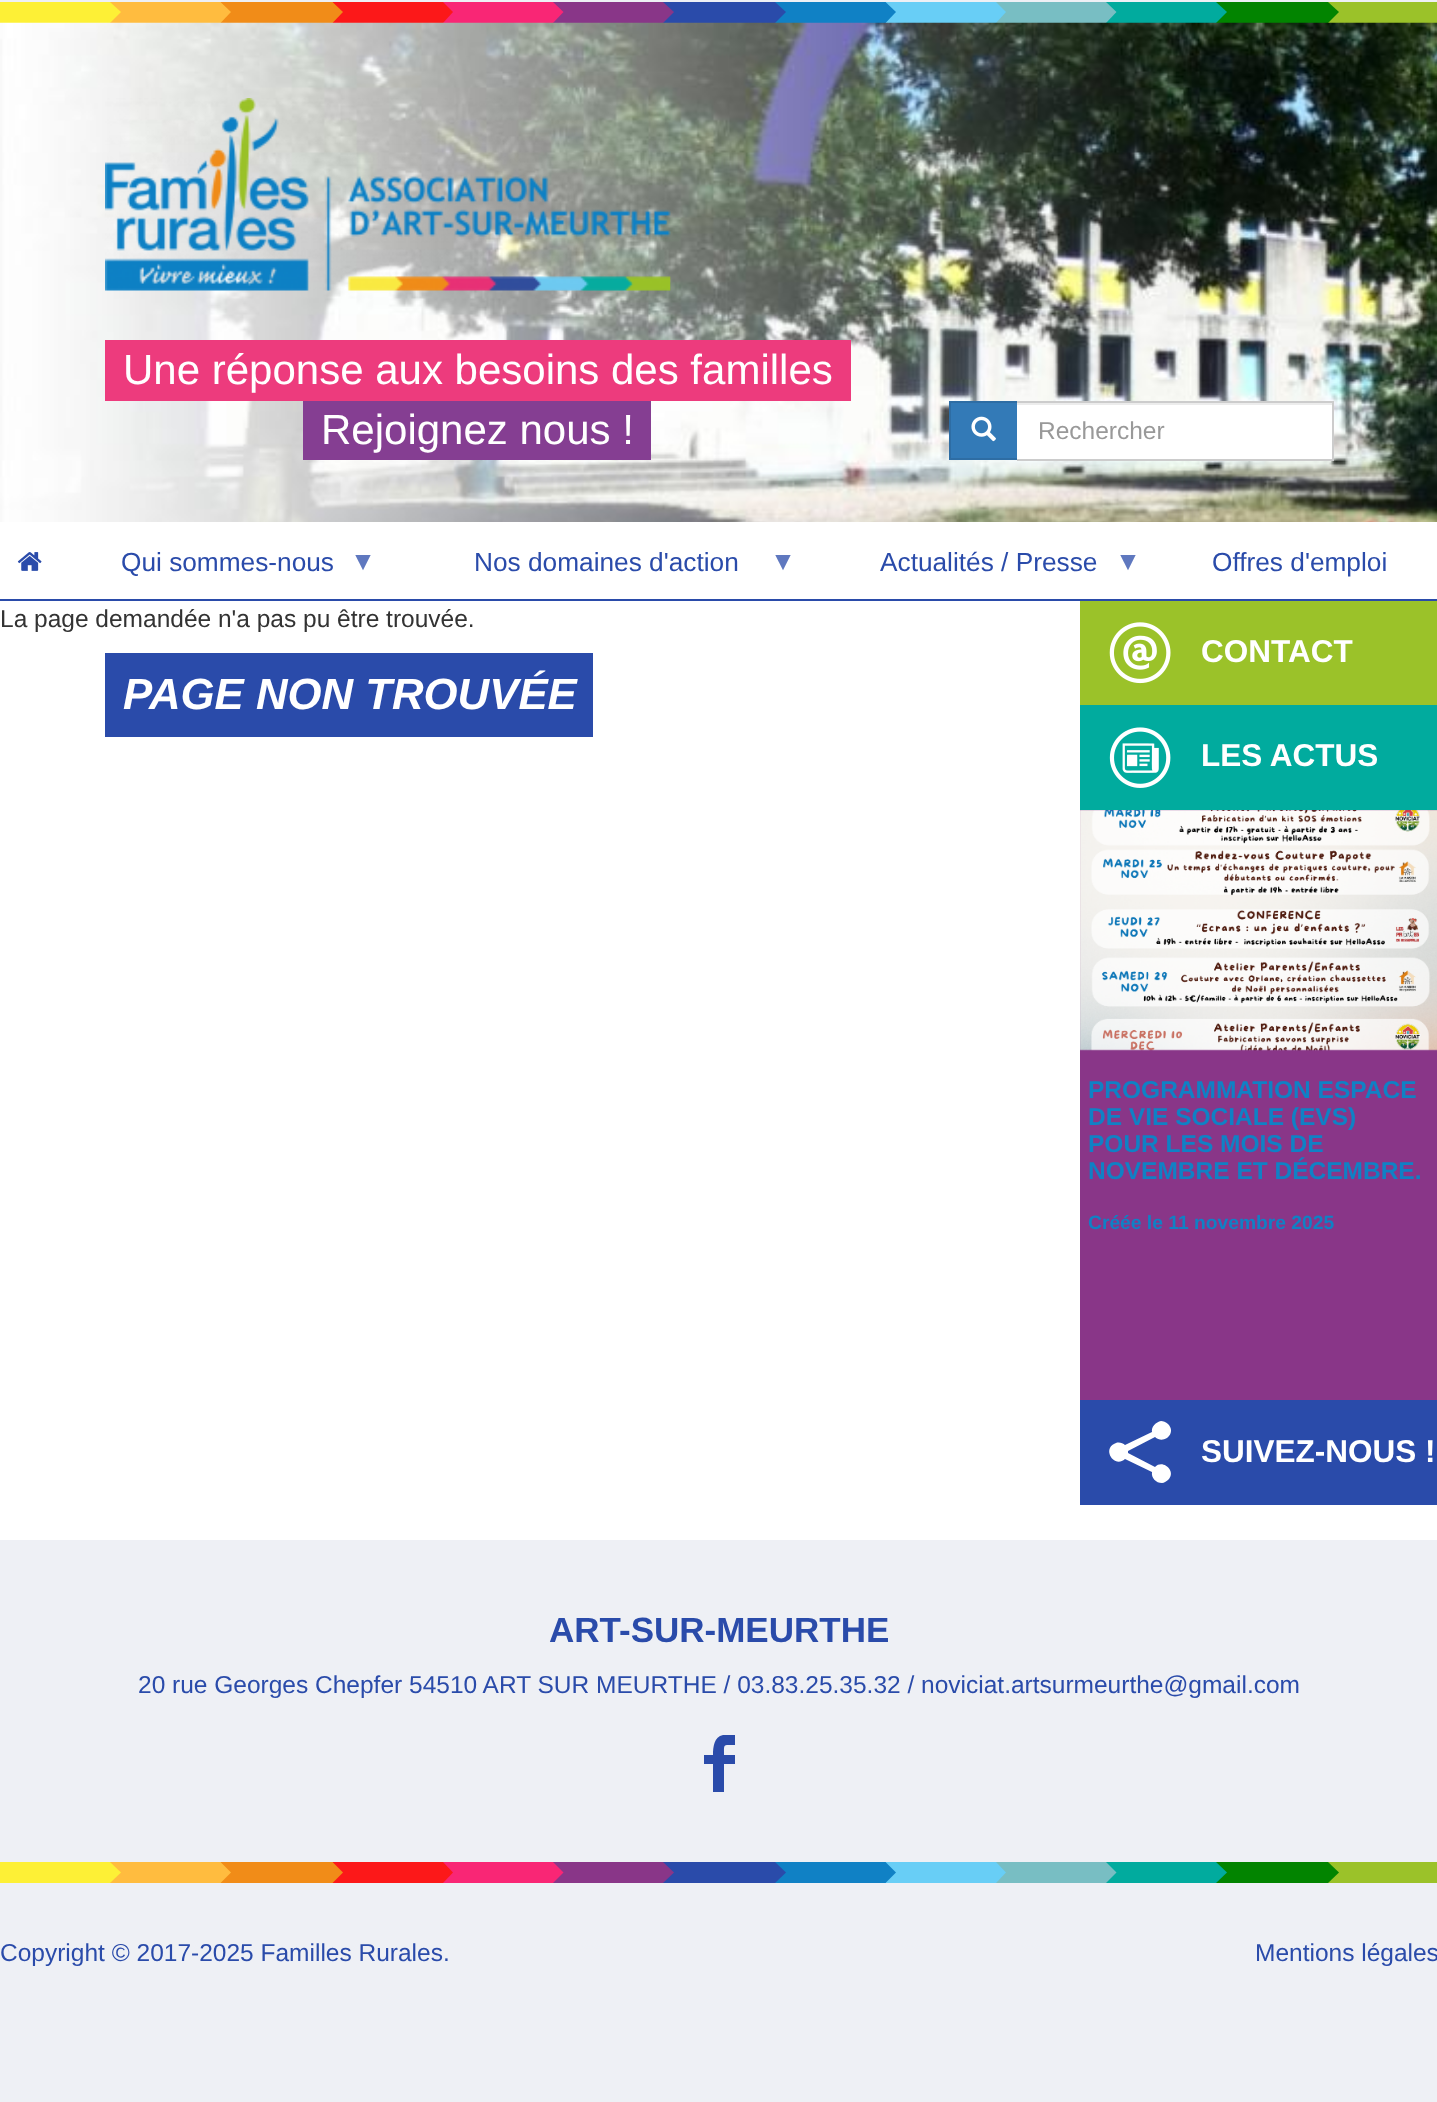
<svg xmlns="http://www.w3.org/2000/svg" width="1437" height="2102">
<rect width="100%" height="100%" fill="#eef0f5"/>
<rect y="2" width="110" height="21" fill="#fdf036"/>
<rect x="110" y="2" width="111" height="21" fill="#ffbc3f"/>
<path d="M110 23v-21l11 10z" fill="#fdf036"/>
<rect x="221" y="2" width="112" height="21" fill="#f18c18"/>
<path d="M220.5 2h10.5v10zm10.5 21h-10.5l10.5-11z" fill="#f18c18"/>
<path d="M220.5 23v-21l10.5 10z" fill="#ffbc3f"/>
<rect x="333" y="2" width="110" height="21" fill="#fc1819"/>
<path d="M332.5 2h10.5v10zm10.5 21h-10.5l10.5-11z" fill="#fc1819"/>
<path d="M332.5 23v-21l10.5 10z" fill="#f18c18"/>
<rect x="443" y="2" width="110" height="21" fill="#f92675"/>
<path d="M443 23v-21l10 10z" fill="#fc1819"/>
<rect x="553" y="2" width="110" height="21" fill="#893688"/>
<path d="M553 23v-21l10.5 10z" fill="#f92675"/>
<rect x="663" y="2" width="112" height="21" fill="#2a4baa"/>
<path d="M663 23v-21l11 10z" fill="#893688"/>
<rect x="775" y="2" width="111" height="21" fill="#1081c5"/>
<path d="M775 23v-21l11 10z" fill="#2a4baa"/>
<rect x="886" y="2" width="110" height="21" fill="#68cef6"/>
<path d="M885.5 2h10.5v10zm10.5 21h-10.5l10.5-11z" fill="#68cef6"/>
<path d="M885.5 23v-21l10.5 10z" fill="#1081c5"/>
<rect x="996" y="2" width="110" height="21" fill="#78bec3"/>
<path d="M996 23v-21l10 10z" fill="#68cef6"/>
<rect x="1106" y="2" width="110" height="21" fill="#01ab9e"/>
<path d="M1106 23v-21l10.5 10z" fill="#78bec3"/>
<rect x="1216" y="2" width="112" height="21" fill="#028400"/>
<path d="M1216 23v-21l11 10z" fill="#01ab9e"/>
<rect x="1328" y="2" width="109" height="21" fill="#9bc229"/>
<path d="M1328 23v-21l11 10z" fill="#028400"/>
<image x="0" y="22" width="1437" height="500" href="media/1.png"/>
<image x="105" y="98" width="566" height="193" href="media/2.png"/>
<rect x="105" y="340" width="746" height="61" fill="#ed3b7d"/>
<text x="123" y="384" style="font-family:Liberation Sans;font-size:42px;fill:#fff">Une réponse aux besoins des familles</text>
<rect x="303" y="401" width="348" height="59" fill="#853e92"/>
<text x="321" y="444" style="font-family:Liberation Sans;font-size:42px;fill:#fff">Rejoignez nous !</text>
<rect x="950" y="402" width="68" height="57" fill="#337ab7" stroke="#2e6da4" stroke-width="2"/>
<image x="971" y="416" width="25" height="26" href="media/3.png"/>
<rect x="1017" y="405" width="315" height="54" fill="#fff"/>
<rect x="1017" y="403" width="315" height="2" fill="#ececec"/>
<rect x="1017" y="401" width="317" height="2" fill="#ccc"/>
<rect x="1332" y="401" width="2" height="59" fill="#ccc"/>
<rect x="1017" y="459" width="317" height="2" fill="#ccc"/>
<text x="1038" y="439" style="font-family:Liberation Sans;font-size:24.5px;fill:#999">Rechercher</text>
<rect y="599" width="1437" height="2" fill="#2a4baa"/>
<rect y="522" width="1437" height="77" fill="#fff"/>
<image x="17" y="552" width="25" height="19" href="media/4.png"/>
<text x="121" y="571" style="font-family:Liberation Sans;font-size:26.25px;fill:#2a4baa">Qui sommes-nous</text>
<text x="350" y="570" style="font-family:Liberation Sans;font-size:26.25px;fill:#5f78bf">▼</text>
<text x="474" y="571" style="font-family:Liberation Sans;font-size:26.25px;fill:#2a4baa">Nos domaines d'action</text>
<text x="770" y="570" style="font-family:Liberation Sans;font-size:26.25px;fill:#5f78bf">▼</text>
<text x="880" y="571" style="font-family:Liberation Sans;font-size:26.25px;fill:#2a4baa">Actualités / Presse</text>
<text x="1115" y="570" style="font-family:Liberation Sans;font-size:26.25px;fill:#5f78bf">▼</text>
<text x="1212" y="571" style="font-family:Liberation Sans;font-size:26.25px;fill:#2a4baa">Offres d'emploi</text>
<rect y="601" width="1437" height="939" fill="#fff"/>
<text x="0" y="627" style="font-family:Liberation Sans;font-size:24.5px;fill:#333">La page demandée n'a pas pu être trouvée.</text>
<rect x="105" y="653" width="488" height="84" fill="#2a4baa"/>
<text x="123" y="709" style="font-family:Liberation Sans;font-size:43.75px;font-weight:bold;font-style:italic;fill:#fff">PAGE NON TROUVÉE</text>
<rect x="1080" y="601" width="357" height="104" fill="#9bc229"/>
<image x="1109" y="622" width="62" height="62" href="media/5.png"/>
<text x="1201" y="662" style="font-family:Liberation Sans;font-size:31.5px;font-weight:bold;fill:#fff">CONTACT</text>
<rect x="1080" y="705" width="357" height="105" fill="#01ab9e"/>
<image x="1109" y="727" width="62" height="61" href="media/6.png"/>
<text x="1201" y="766" style="font-family:Liberation Sans;font-size:31.5px;font-weight:bold;fill:#fff">LES ACTUS</text>
<rect x="1080" y="810" width="357" height="590" fill="#893688"/>
<image x="1080" y="810" width="357" height="241" href="media/7.png"/>
<text x="1088" y="1098" style="font-family:Liberation Sans;font-size:24.5px;font-weight:bold;fill:#1081c5">PROGRAMMATION ESPACE</text>
<text x="1088" y="1125" style="font-family:Liberation Sans;font-size:24.5px;font-weight:bold;fill:#1081c5">DE VIE SOCIALE (EVS)</text>
<text x="1088" y="1152" style="font-family:Liberation Sans;font-size:24.5px;font-weight:bold;fill:#1081c5">POUR LES MOIS DE</text>
<text x="1088" y="1179" style="font-family:Liberation Sans;font-size:24.5px;font-weight:bold;fill:#1081c5">NOVEMBRE ET DÉCEMBRE.</text>
<text x="1088" y="1229" style="font-family:Liberation Sans;font-size:19.25px;font-weight:bold;fill:#1081c5">Créée le 11 novembre 2025</text>
<rect x="1080" y="1400" width="357" height="105" fill="#2a4baa"/>
<path d="M1125 1459c-11 10-24-11-9-16c3-1 7 0 9 2l27-13c-1-5 4-10 9-11c2 0 5 1 7 3c9 9-4 21-13 13l-27 14v2l27 14c8-8 21 4 14 12c-2 2-5 4-7 4c-6 0-11-5-10-11z" fill="#fff"/>
<text x="1201" y="1462" style="font-family:Liberation Sans;font-size:31.5px;font-weight:bold;fill:#fff">SUIVEZ-NOUS !</text>
<text x="549" y="1642" style="font-family:Liberation Sans;font-size:35px;font-weight:bold;fill:#2a4baa">ART-SUR-MEURTHE</text>
<text x="138" y="1693" style="font-family:Liberation Sans;font-size:24.5px;fill:#2a4baa">20 rue Georges Chepfer 54510 ART SUR MEURTHE / 03.83.25.35.32 / noviciat.artsurmeurthe@gmail.com</text>
<path d="M735 1745c-12 0-11-2-11 10h11v9h-11v28h-11v-28h-9v-9h9c0-8 1-18 10-20h12z" fill="#2a4baa"/>
<rect y="1862" width="110" height="21" fill="#fdf036"/>
<rect x="110" y="1862" width="111" height="21" fill="#ffbc3f"/>
<path d="M110 1883v-21l11 10.5z" fill="#fdf036"/>
<rect x="221" y="1862" width="112" height="21" fill="#f18c18"/>
<path d="M220.5 1862h10.5v10.5z" fill="#f18c18"/>
<path d="M231 1883h-10.5l10.5-10.5z" fill="#f18c18"/>
<path d="M220.5 1883v-21l10.5 10.5z" fill="#ffbc3f"/>
<rect x="333" y="1862" width="110" height="21" fill="#fc1819"/>
<path d="M332.5 1862h10.5v10.5z" fill="#fc1819"/>
<path d="M343 1883h-10.5l10.5-10.5z" fill="#fc1819"/>
<path d="M332.5 1883v-21l10.5 10.5z" fill="#f18c18"/>
<rect x="443" y="1862" width="110" height="21" fill="#f92675"/>
<path d="M443 1883v-21l10 10.5z" fill="#fc1819"/>
<rect x="553" y="1862" width="110" height="21" fill="#893688"/>
<path d="M553 1883v-21l10.5 10.5z" fill="#f92675"/>
<rect x="663" y="1862" width="112" height="21" fill="#2a4baa"/>
<path d="M663 1883v-21l11 10.5z" fill="#893688"/>
<rect x="775" y="1862" width="111" height="21" fill="#1081c5"/>
<path d="M775 1883v-21l11 10.5z" fill="#2a4baa"/>
<rect x="886" y="1862" width="110" height="21" fill="#68cef6"/>
<path d="M885.5 1862h10.5v10.5z" fill="#68cef6"/>
<path d="M896 1883h-10.5l10.5-10.5z" fill="#68cef6"/>
<path d="M885.5 1883v-21l10.5 10.5z" fill="#1081c5"/>
<rect x="996" y="1862" width="110" height="21" fill="#78bec3"/>
<path d="M996 1883v-21l10 10.5z" fill="#68cef6"/>
<rect x="1106" y="1862" width="110" height="21" fill="#01ab9e"/>
<path d="M1106 1883v-21l10.5 10.5z" fill="#78bec3"/>
<rect x="1216" y="1862" width="112" height="21" fill="#028400"/>
<path d="M1216 1883v-21l11 10.5z" fill="#01ab9e"/>
<rect x="1328" y="1862" width="109" height="21" fill="#9bc229"/>
<path d="M1328 1883v-21l11 10.5z" fill="#028400"/>
<text x="0" y="1961" style="font-family:Liberation Sans;font-size:24.5px;fill:#2a4baa">Copyright © 2017-2025 Familles Rurales.</text>
<text x="1255" y="1961" style="font-family:Liberation Sans;font-size:24.5px;fill:#2a4baa">Mentions légales</text>
</svg>
